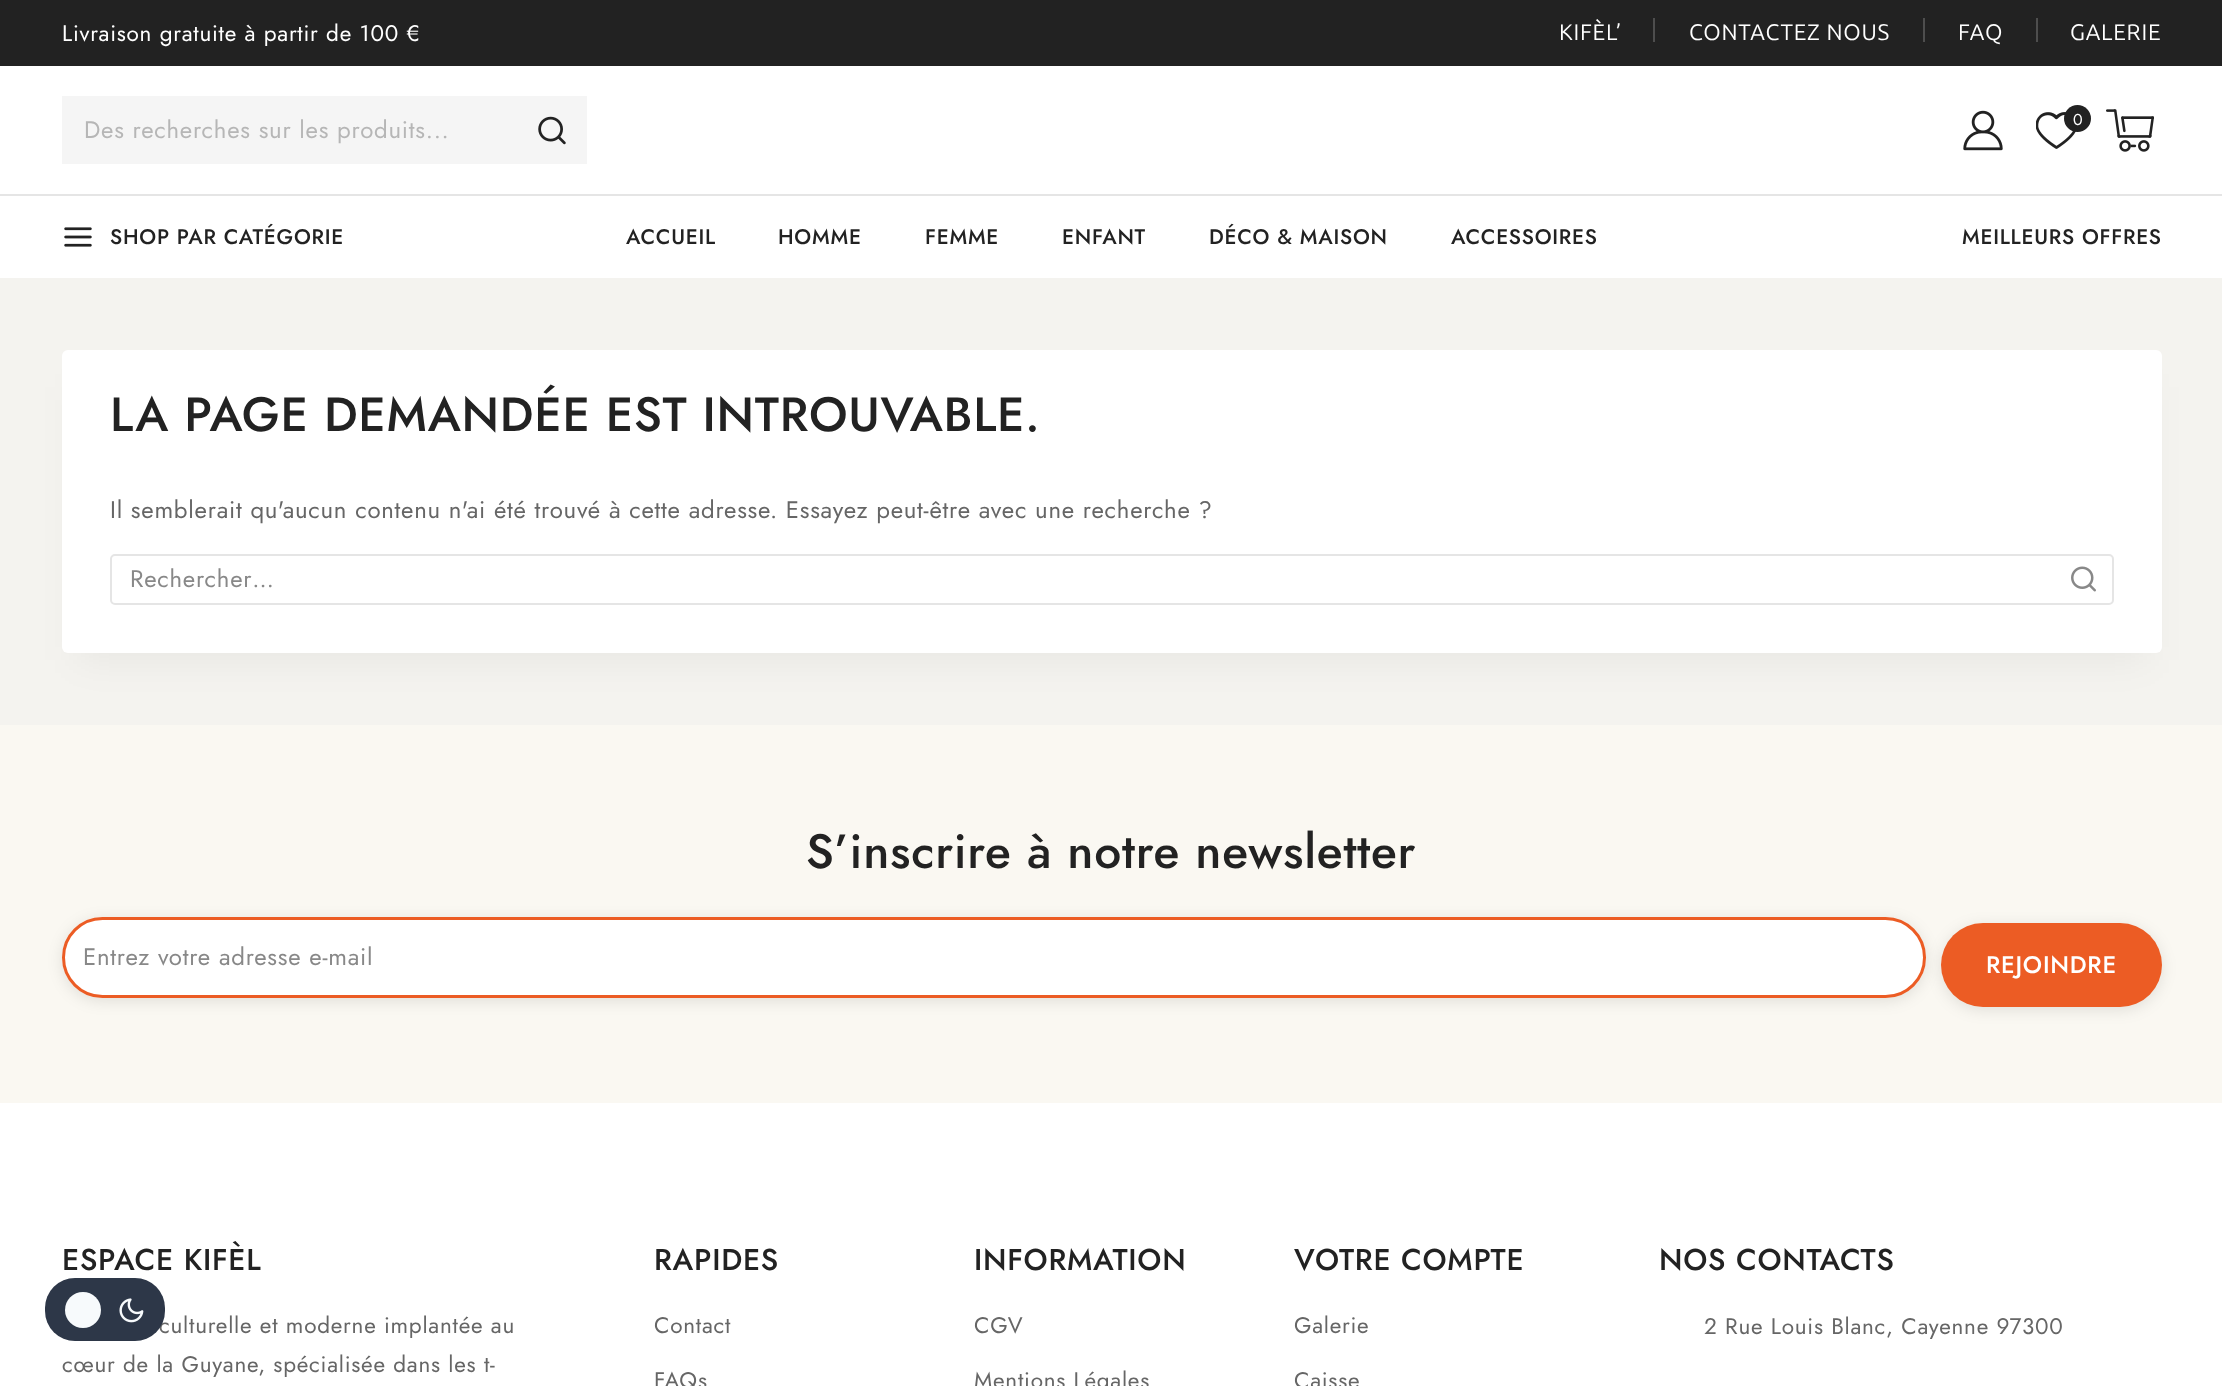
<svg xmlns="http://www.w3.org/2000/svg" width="2222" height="1386">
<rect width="100%" height="100%" fill="#f4f3ef"/>
<rect y="66" width="2222" height="212" fill="#fff"/>
<rect width="2222" height="66" fill="#222"/>
<text x="62" y="41" style="font-family:Jost;font-size:22.5px;letter-spacing:0.75px;fill:#fff">Livraison gratuite à partir de 100 €</text>
<text x="1559" y="40" style="font-family:Ubuntu;font-size:22.5px;letter-spacing:0.75px;fill:#fff">KIFÈL’</text>
<rect x="1653" y="18" width="2" height="24" fill="#4e4e4e"/>
<text x="1689" y="40" style="font-family:Ubuntu;font-size:22.5px;letter-spacing:0.75px;fill:#fff">CONTACTEZ NOUS</text>
<rect x="1923" y="18" width="2" height="24" fill="#4e4e4e"/>
<text x="1958" y="40" style="font-family:Ubuntu;font-size:22.5px;letter-spacing:0.75px;fill:#fff">FAQ</text>
<rect x="2036" y="18" width="2" height="24" fill="#4e4e4e"/>
<text x="2070" y="40" style="font-family:Ubuntu;font-size:22.5px;letter-spacing:0.75px;fill:#fff">GALERIE</text>
<rect y="194" width="2222" height="2" fill="#e5e5e5"/>
<rect x="62" y="96" width="525" height="68" fill="#f5f5f5"/>
<text x="84" y="138" style="font-family:Jost;font-size:24px;letter-spacing:0.75px;fill:#b6b6b6">Des recherches sur les produits...</text>
<image x="538" y="116" width="28" height="29" href="media/1.png"/>
<image x="1963" y="110" width="40" height="41" href="media/2.png"/>
<image x="2036" y="112" width="40" height="37" href="media/3.png"/>
<circle cx="2077.5" cy="118.5" r="13.5" fill="#222"/>
<text x="2073" y="125" style="font-family:Jost;font-size:16px;fill:#fff">0</text>
<image x="2106" y="109" width="48" height="43" href="media/4.png"/>
<image x="64" y="227" width="28" height="20" href="media/5.png"/>
<text x="110" y="244" style="font-family:Jost;font-size:21px;font-weight:500;letter-spacing:0.75px;fill:#222">SHOP PAR CATÉGORIE</text>
<text x="626" y="244" style="font-family:Jost;font-size:21px;font-weight:500;letter-spacing:0.75px;fill:#222">ACCUEIL</text>
<text x="778" y="244" style="font-family:Jost;font-size:21px;font-weight:500;letter-spacing:0.75px;fill:#222">HOMME</text>
<text x="925" y="244" style="font-family:Jost;font-size:21px;font-weight:500;letter-spacing:0.75px;fill:#222">FEMME</text>
<text x="1062" y="244" style="font-family:Jost;font-size:21px;font-weight:500;letter-spacing:0.75px;fill:#222">ENFANT</text>
<text x="1209" y="244" style="font-family:Jost;font-size:21px;font-weight:500;letter-spacing:0.75px;fill:#222">DÉCO &amp; MAISON</text>
<text x="1451" y="244" style="font-family:Jost;font-size:21px;font-weight:500;letter-spacing:0.75px;fill:#222">ACCESSOIRES</text>
<text x="1962" y="244" style="font-family:Jost;font-size:21px;font-weight:500;letter-spacing:0.75px;fill:#222">MEILLEURS OFFRES</text>
<rect x="77" y="387" width="2070" height="273" fill="#0000000d" filter="blur(19px)"/>
<rect x="62" y="350" width="2100" height="303" rx="6" fill="#fff"/>
<text x="110" y="431" style="font-family:Jost;font-size:48px;font-weight:500;letter-spacing:0.75px;fill:#222">LA PAGE DEMANDÉE EST INTROUVABLE.</text>
<text x="110" y="518" style="font-family:Jost;font-size:24px;letter-spacing:0.75px;fill:#666">Il semblerait qu'aucun contenu n'ai été trouvé à cette adresse. Essayez peut-être avec une recherche ?</text>
<rect x="111" y="555" width="2002" height="49" rx="4" fill="none" stroke="#e5e5e5" stroke-width="2"/>
<text x="130" y="587" style="font-family:Jost;font-size:24px;letter-spacing:0.75px;fill:#888">Rechercher…</text>
<image x="2071" y="566" width="25" height="26" href="media/6.png"/>
<rect y="725" width="2222" height="378" fill="#faf8f2"/>
<text x="806" y="868" style="font-family:Jost;font-size:48px;font-weight:500;letter-spacing:0.75px;fill:#222">S’inscrire à notre newsletter</text>
<rect x="62" y="920" width="1864" height="81" rx="40.5" fill="#0000001a" filter="blur(7.5px)"/>
<rect x="63.5" y="918.5" width="1861" height="78" rx="39" fill="#fff" stroke="#ec5c24" stroke-width="3"/>
<text x="83" y="965" style="font-family:Jost;font-size:24px;letter-spacing:0.75px;fill:#888">Entrez votre adresse e-mail</text>
<rect x="1941" y="926" width="221" height="84" rx="42" fill="#0000001a" filter="blur(7.5px)"/>
<rect x="1941" y="923" width="221" height="84" rx="42" fill="#ec5c24"/>
<text x="1986" y="973" style="font-family:Jost;font-size:24px;font-weight:500;letter-spacing:0.75px;fill:#fff">REJOINDRE</text>
<rect y="1103" width="2222" height="283" fill="#fff"/>
<text x="62" y="1270" style="font-family:Jost;font-size:30px;font-weight:500;letter-spacing:0.75px;fill:#222">ESPACE KIFÈL</text>
<text x="159" y="1333" style="font-family:Jost;font-size:22.5px;letter-spacing:0.75px;fill:#666">culturelle et moderne implantée au</text>
<text x="62" y="1372" style="font-family:Jost;font-size:22.5px;letter-spacing:0.75px;fill:#666">cœur de la Guyane, spécialisée dans les t-</text>
<text x="654" y="1270" style="font-family:Jost;font-size:30px;font-weight:500;letter-spacing:0.75px;fill:#222">RAPIDES</text>
<text x="654" y="1333" style="font-family:Jost;font-size:22.5px;letter-spacing:0.75px;fill:#666">Contact</text>
<text x="654" y="1388" style="font-family:Jost;font-size:22.5px;letter-spacing:0.75px;fill:#666">FAQs</text>
<text x="974" y="1270" style="font-family:Jost;font-size:30px;font-weight:500;letter-spacing:0.75px;fill:#222">INFORMATION</text>
<text x="974" y="1333" style="font-family:Jost;font-size:22.5px;letter-spacing:0.75px;fill:#666">CGV</text>
<text x="974" y="1388" style="font-family:Jost;font-size:22.5px;letter-spacing:0.75px;fill:#666">Mentions Légales</text>
<text x="1294" y="1270" style="font-family:Jost;font-size:30px;font-weight:500;letter-spacing:0.75px;fill:#222">VOTRE COMPTE</text>
<text x="1294" y="1333" style="font-family:Jost;font-size:22.5px;letter-spacing:0.75px;fill:#666">Galerie</text>
<text x="1294" y="1388" style="font-family:Jost;font-size:22.5px;letter-spacing:0.75px;fill:#666">Caisse</text>
<text x="1659" y="1270" style="font-family:Jost;font-size:30px;font-weight:500;letter-spacing:0.75px;fill:#222">NOS CONTACTS</text>
<text x="1704" y="1334" style="font-family:Jost;font-size:22.5px;letter-spacing:0.75px;fill:#666">2 Rue Louis Blanc, Cayenne 97300</text>
<rect x="45" y="1278" width="120" height="63" rx="30" fill="#2d3748"/>
<circle cx="83" cy="1310" r="18" fill="#f7fafc"/>
<image x="119" y="1298" width="25" height="25" href="media/7.png"/>
</svg>
